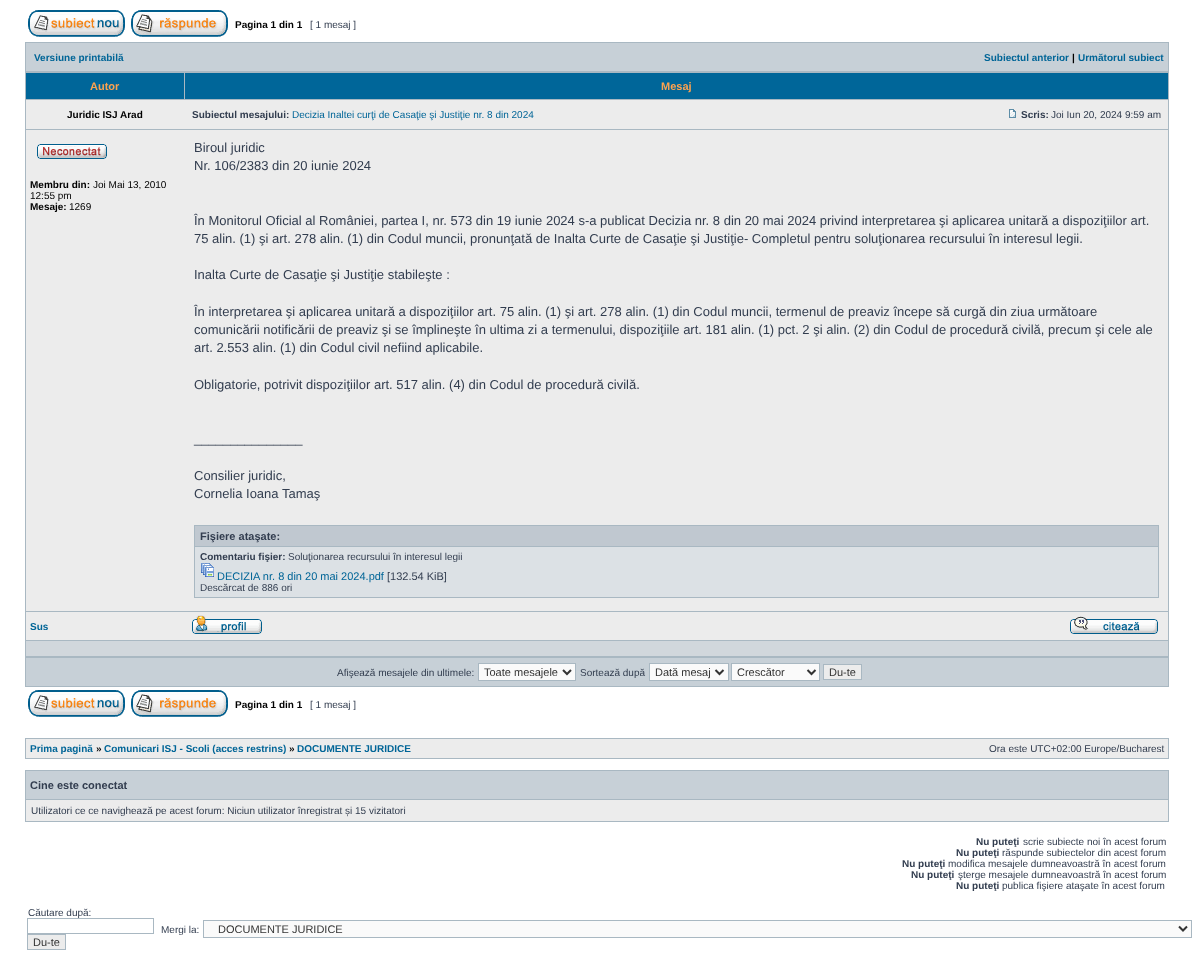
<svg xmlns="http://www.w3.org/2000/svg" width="1194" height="964">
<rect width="100%" height="100%" fill="#fff"/>
<image x="28" y="10" width="97" height="27" href="media/1.png"/>
<image x="131" y="10" width="97" height="27" href="media/2.png"/>
<text x="235" y="28" style="font-family:Liberation Sans;font-size:10px;font-weight:bold;fill:#000">Pagina 1 din 1</text>
<text x="310" y="28" style="font-family:Liberation Sans;font-size:10px;fill:#323d4f">[ 1 mesaj ]</text>
<rect x="25" y="42" width="1144" height="645" fill="#a9b8c2"/>
<rect x="26" y="43" width="1142" height="28" fill="#c7d0d7"/>
<text x="34" y="61" style="font-family:Liberation Sans;font-size:10px;font-weight:bold;fill:#006597">Versiune printabilă</text>
<text x="984" y="61" style="font-family:Liberation Sans;font-size:10px;font-weight:bold;fill:#006597">Subiectul anterior</text>
<text x="1072" y="61" style="font-family:Liberation Sans;font-size:10px;font-weight:bold;fill:#000">|</text>
<text x="1078" y="61" style="font-family:Liberation Sans;font-size:10px;font-weight:bold;fill:#006597">Următorul subiect</text>
<rect x="26" y="73" width="158" height="26" fill="#069"/>
<text x="90" y="90" style="font-family:Liberation Sans;font-size:11px;font-weight:bold;fill:#ffa34f">Autor</text>
<rect x="185" y="73" width="983" height="26" fill="#069"/>
<text x="661" y="90" style="font-family:Liberation Sans;font-size:11px;font-weight:bold;fill:#ffa34f">Mesaj</text>
<rect x="26" y="100" width="1142" height="29" fill="#ececec"/>
<text x="67" y="118" style="font-family:Liberation Sans;font-size:10px;font-weight:bold;fill:#000">Juridic ISJ Arad</text>
<text x="192" y="118" style="font-family:Liberation Sans;font-size:10px;font-weight:bold;fill:#323d4f">Subiectul mesajului:</text>
<text x="292" y="118" style="font-family:Liberation Sans;font-size:10px;fill:#006597">Decizia Inaltei curţi de Casaţie şi Justiţie nr. 8 din 2024</text>
<image x="1009" y="109" width="7" height="9" href="media/3.png"/>
<text x="1021" y="118" style="font-family:Liberation Sans;font-size:10px;font-weight:bold;fill:#323d4f">Scris:</text>
<text x="1051" y="118" style="font-family:Liberation Sans;font-size:10px;fill:#323d4f">Joi Iun 20, 2024 9:59 am</text>
<rect x="26" y="130" width="1142" height="481" fill="#ececec"/>
<image x="37" y="144" width="70" height="15" href="media/4.png"/>
<text x="30" y="188" style="font-family:Liberation Sans;font-size:10px;font-weight:bold;fill:#000">Membru din:</text>
<text x="93" y="188" style="font-family:Liberation Sans;font-size:10px;fill:#000">Joi Mai 13, 2010</text>
<text x="30" y="199" style="font-family:Liberation Sans;font-size:10px;fill:#000">12:55 pm</text>
<text x="30" y="210" style="font-family:Liberation Sans;font-size:10px;font-weight:bold;fill:#000">Mesaje:</text>
<text x="69" y="210" style="font-family:Liberation Sans;font-size:10px;fill:#000">1269</text>
<text x="194" y="152" style="font-family:Liberation Sans;font-size:13px;fill:#323d4f">Biroul juridic</text>
<text x="194" y="170" style="font-family:Liberation Sans;font-size:13px;fill:#323d4f">Nr. 106/2383 din 20 iunie 2024</text>
<text x="194" y="225" style="font-family:Liberation Sans;font-size:13px;fill:#323d4f">În Monitorul Oficial al României, partea I, nr. 573 din 19 iunie 2024 s-a publicat Decizia nr. 8 din 20 mai 2024 privind interpretarea şi aplicarea unitară a dispoziţiilor art.</text>
<text x="194" y="243" style="font-family:Liberation Sans;font-size:13px;fill:#323d4f">75 alin. (1) şi art. 278 alin. (1) din Codul muncii, pronunţată de Inalta Curte de Casaţie şi Justiţie- Completul pentru soluţionarea recursului în interesul legii.</text>
<text x="194" y="279" style="font-family:Liberation Sans;font-size:13px;fill:#323d4f">Inalta Curte de Casaţie şi Justiţie stabileşte :</text>
<text x="194" y="316" style="font-family:Liberation Sans;font-size:13px;fill:#323d4f">În interpretarea şi aplicarea unitară a dispoziţiilor art. 75 alin. (1) şi art. 278 alin. (1) din Codul muncii, termenul de preaviz începe să curgă din ziua următoare</text>
<text x="194" y="334" style="font-family:Liberation Sans;font-size:13px;fill:#323d4f">comunicării notificării de preaviz şi se împlineşte în ultima zi a termenului, dispoziţiile art. 181 alin. (1) pct. 2 şi alin. (2) din Codul de procedură civilă, precum şi cele ale</text>
<text x="194" y="352" style="font-family:Liberation Sans;font-size:13px;fill:#323d4f">art. 2.553 alin. (1) din Codul civil nefiind aplicabile.</text>
<text x="194" y="389" style="font-family:Liberation Sans;font-size:13px;fill:#323d4f">Obligatorie, potrivit dispoziţiilor art. 517 alin. (4) din Codul de procedură civilă.</text>
<text x="194" y="443" style="font-family:Liberation Sans;font-size:13px;fill:#323d4f">_______________</text>
<text x="194" y="480" style="font-family:Liberation Sans;font-size:13px;fill:#323d4f">Consilier juridic,</text>
<text x="194" y="498" style="font-family:Liberation Sans;font-size:13px;fill:#323d4f">Cornelia Ioana Tamaş</text>
<rect x="194" y="525" width="965" height="73" fill="#a9b8c2"/>
<rect x="195" y="526" width="963" height="20" fill="#c0c8d0"/>
<text x="200" y="540" style="font-family:Liberation Sans;font-size:11px;font-weight:bold;fill:#323d4f">Fişiere ataşate:</text>
<rect x="195" y="547" width="963" height="50" fill="#dce1e5"/>
<text x="200" y="560" style="font-family:Liberation Sans;font-size:10px;font-weight:bold;fill:#323d4f">Comentariu fişier:</text>
<text x="288" y="560" style="font-family:Liberation Sans;font-size:10px;fill:#323d4f">Soluţionarea recursului în interesul legii</text>
<image x="201" y="563" width="13" height="14" href="media/5.png"/>
<text x="217" y="580" style="font-family:Liberation Sans;font-size:11px;fill:#006597">DECIZIA nr. 8 din 20 mai 2024.pdf</text>
<text x="387" y="580" style="font-family:Liberation Sans;font-size:11px;fill:#323d4f">[132.54 KiB]</text>
<text x="200" y="591" style="font-family:Liberation Sans;font-size:10px;fill:#323d4f">Descărcat de 886 ori</text>
<rect x="26" y="612" width="1142" height="28" fill="#ececec"/>
<text x="30" y="630" style="font-family:Liberation Sans;font-size:10px;font-weight:bold;fill:#006597">Sus</text>
<image x="192" y="615" width="70" height="19" href="media/6.png"/>
<image x="1070" y="616" width="88" height="18" href="media/7.png"/>
<rect x="26" y="641" width="1142" height="15" fill="#d1d7dc"/>
<rect x="26" y="658" width="1142" height="28" fill="#c7d0d7"/>
<text x="337" y="676" style="font-family:Liberation Sans;font-size:10px;fill:#323d4f">Afişează mesajele din ultimele:</text>
<rect x="478.5" y="663.5" width="97" height="17" fill="#fafafa" stroke="#a9b8c2"/>
<path d="M563 670l4 4l4-4" fill="none" stroke="#333" stroke-width="2"/>
<text x="484" y="676" style="font-family:Liberation Sans;font-size:11px;fill:#333">Toate mesajele</text>
<text x="580" y="676" style="font-family:Liberation Sans;font-size:10px;fill:#323d4f">Sortează după</text>
<rect x="649.5" y="663.5" width="79" height="17" fill="#fafafa" stroke="#a9b8c2"/>
<path d="M715.5 670l4 4l4-4" fill="none" stroke="#333" stroke-width="2"/>
<text x="655" y="676" style="font-family:Liberation Sans;font-size:11px;fill:#333">Dată mesaj</text>
<rect x="731.5" y="663.5" width="88" height="17" fill="#fafafa" stroke="#a9b8c2"/>
<path d="M807.5 670l4 4l4-4" fill="none" stroke="#333" stroke-width="2"/>
<text x="737" y="676" style="font-family:Liberation Sans;font-size:11px;fill:#333">Crescător</text>
<rect x="823.5" y="664.5" width="38" height="15" fill="#ececec" stroke="#a9b8c2"/>
<text x="829" y="676" style="font-family:Liberation Sans;font-size:11px;fill:#333">Du-te</text>
<image x="28" y="690" width="97" height="27" href="media/1.png"/>
<image x="131" y="690" width="97" height="27" href="media/2.png"/>
<text x="235" y="708" style="font-family:Liberation Sans;font-size:10px;font-weight:bold;fill:#000">Pagina 1 din 1</text>
<text x="310" y="708" style="font-family:Liberation Sans;font-size:10px;fill:#323d4f">[ 1 mesaj ]</text>
<rect x="25" y="738" width="1144" height="21" fill="#a9b8c2"/>
<rect x="26" y="739" width="1142" height="19" fill="#ececec"/>
<text x="30" y="752" style="font-family:Liberation Sans;font-size:10px;font-weight:bold;fill:#006597">Prima pagină</text>
<text x="96" y="752" style="font-family:Liberation Sans;font-size:10px;font-weight:bold;fill:#000">»</text>
<text x="104" y="752" style="font-family:Liberation Sans;font-size:10px;font-weight:bold;fill:#006597">Comunicari ISJ - Scoli (acces restrins)</text>
<text x="289" y="752" style="font-family:Liberation Sans;font-size:10px;font-weight:bold;fill:#000">»</text>
<text x="297" y="752" style="font-family:Liberation Sans;font-size:10px;font-weight:bold;fill:#006597">DOCUMENTE JURIDICE</text>
<text x="989" y="752" style="font-family:Liberation Sans;font-size:10px;fill:#323d4f">Ora este UTC+02:00 Europe/Bucharest</text>
<rect x="25" y="770" width="1144" height="52" fill="#a9b8c2"/>
<rect x="26" y="771" width="1142" height="28" fill="#c7d0d7"/>
<text x="30" y="789" style="font-family:Liberation Sans;font-size:11px;font-weight:bold;fill:#323d4f">Cine este conectat</text>
<rect x="26" y="800" width="1142" height="21" fill="#ececec"/>
<text x="31" y="814" style="font-family:Liberation Sans;font-size:10px;fill:#323d4f">Utilizatori ce ce navighează pe acest forum: Niciun utilizator înregistrat și 15 vizitatori</text>
<text x="976" y="845" style="font-family:Liberation Sans;font-size:10px;font-weight:bold;fill:#323d4f">Nu puteţi</text>
<text x="1023" y="845" style="font-family:Liberation Sans;font-size:10px;fill:#323d4f">scrie subiecte noi în acest forum</text>
<text x="956" y="856" style="font-family:Liberation Sans;font-size:10px;font-weight:bold;fill:#323d4f">Nu puteţi</text>
<text x="1002" y="856" style="font-family:Liberation Sans;font-size:10px;fill:#323d4f">răspunde subiectelor din acest forum</text>
<text x="902" y="867" style="font-family:Liberation Sans;font-size:10px;font-weight:bold;fill:#323d4f">Nu puteţi</text>
<text x="948" y="867" style="font-family:Liberation Sans;font-size:10px;fill:#323d4f">modifica mesajele dumneavoastră în acest forum</text>
<text x="911" y="878" style="font-family:Liberation Sans;font-size:10px;font-weight:bold;fill:#323d4f">Nu puteţi</text>
<text x="958" y="878" style="font-family:Liberation Sans;font-size:10px;fill:#323d4f">şterge mesajele dumneavoastră în acest forum</text>
<text x="956" y="889" style="font-family:Liberation Sans;font-size:10px;font-weight:bold;fill:#323d4f">Nu puteţi</text>
<text x="1002" y="889" style="font-family:Liberation Sans;font-size:10px;fill:#323d4f">publica fişiere ataşate în acest forum</text>
<text x="28" y="916" style="font-family:Liberation Sans;font-size:10px;fill:#323d4f">Căutare după:</text>
<rect x="27.5" y="918.5" width="126" height="15" fill="none" stroke="#a9b8c2"/>
<rect x="27.5" y="934.5" width="38" height="15" fill="#ececec" stroke="#a9b8c2"/>
<text x="33" y="946" style="font-family:Liberation Sans;font-size:11px;fill:#333">Du-te</text>
<text x="161" y="933" style="font-family:Liberation Sans;font-size:10px;fill:#323d4f">Mergi la:</text>
<rect x="203.5" y="920.5" width="988" height="17" fill="#fafafa" stroke="#a9b8c2"/>
<path d="M1179 926.5l4 4l4-4" fill="none" stroke="#333" stroke-width="2"/>
<text x="218" y="933" style="font-family:Liberation Sans;font-size:11px;fill:#333">DOCUMENTE JURIDICE</text>
</svg>
